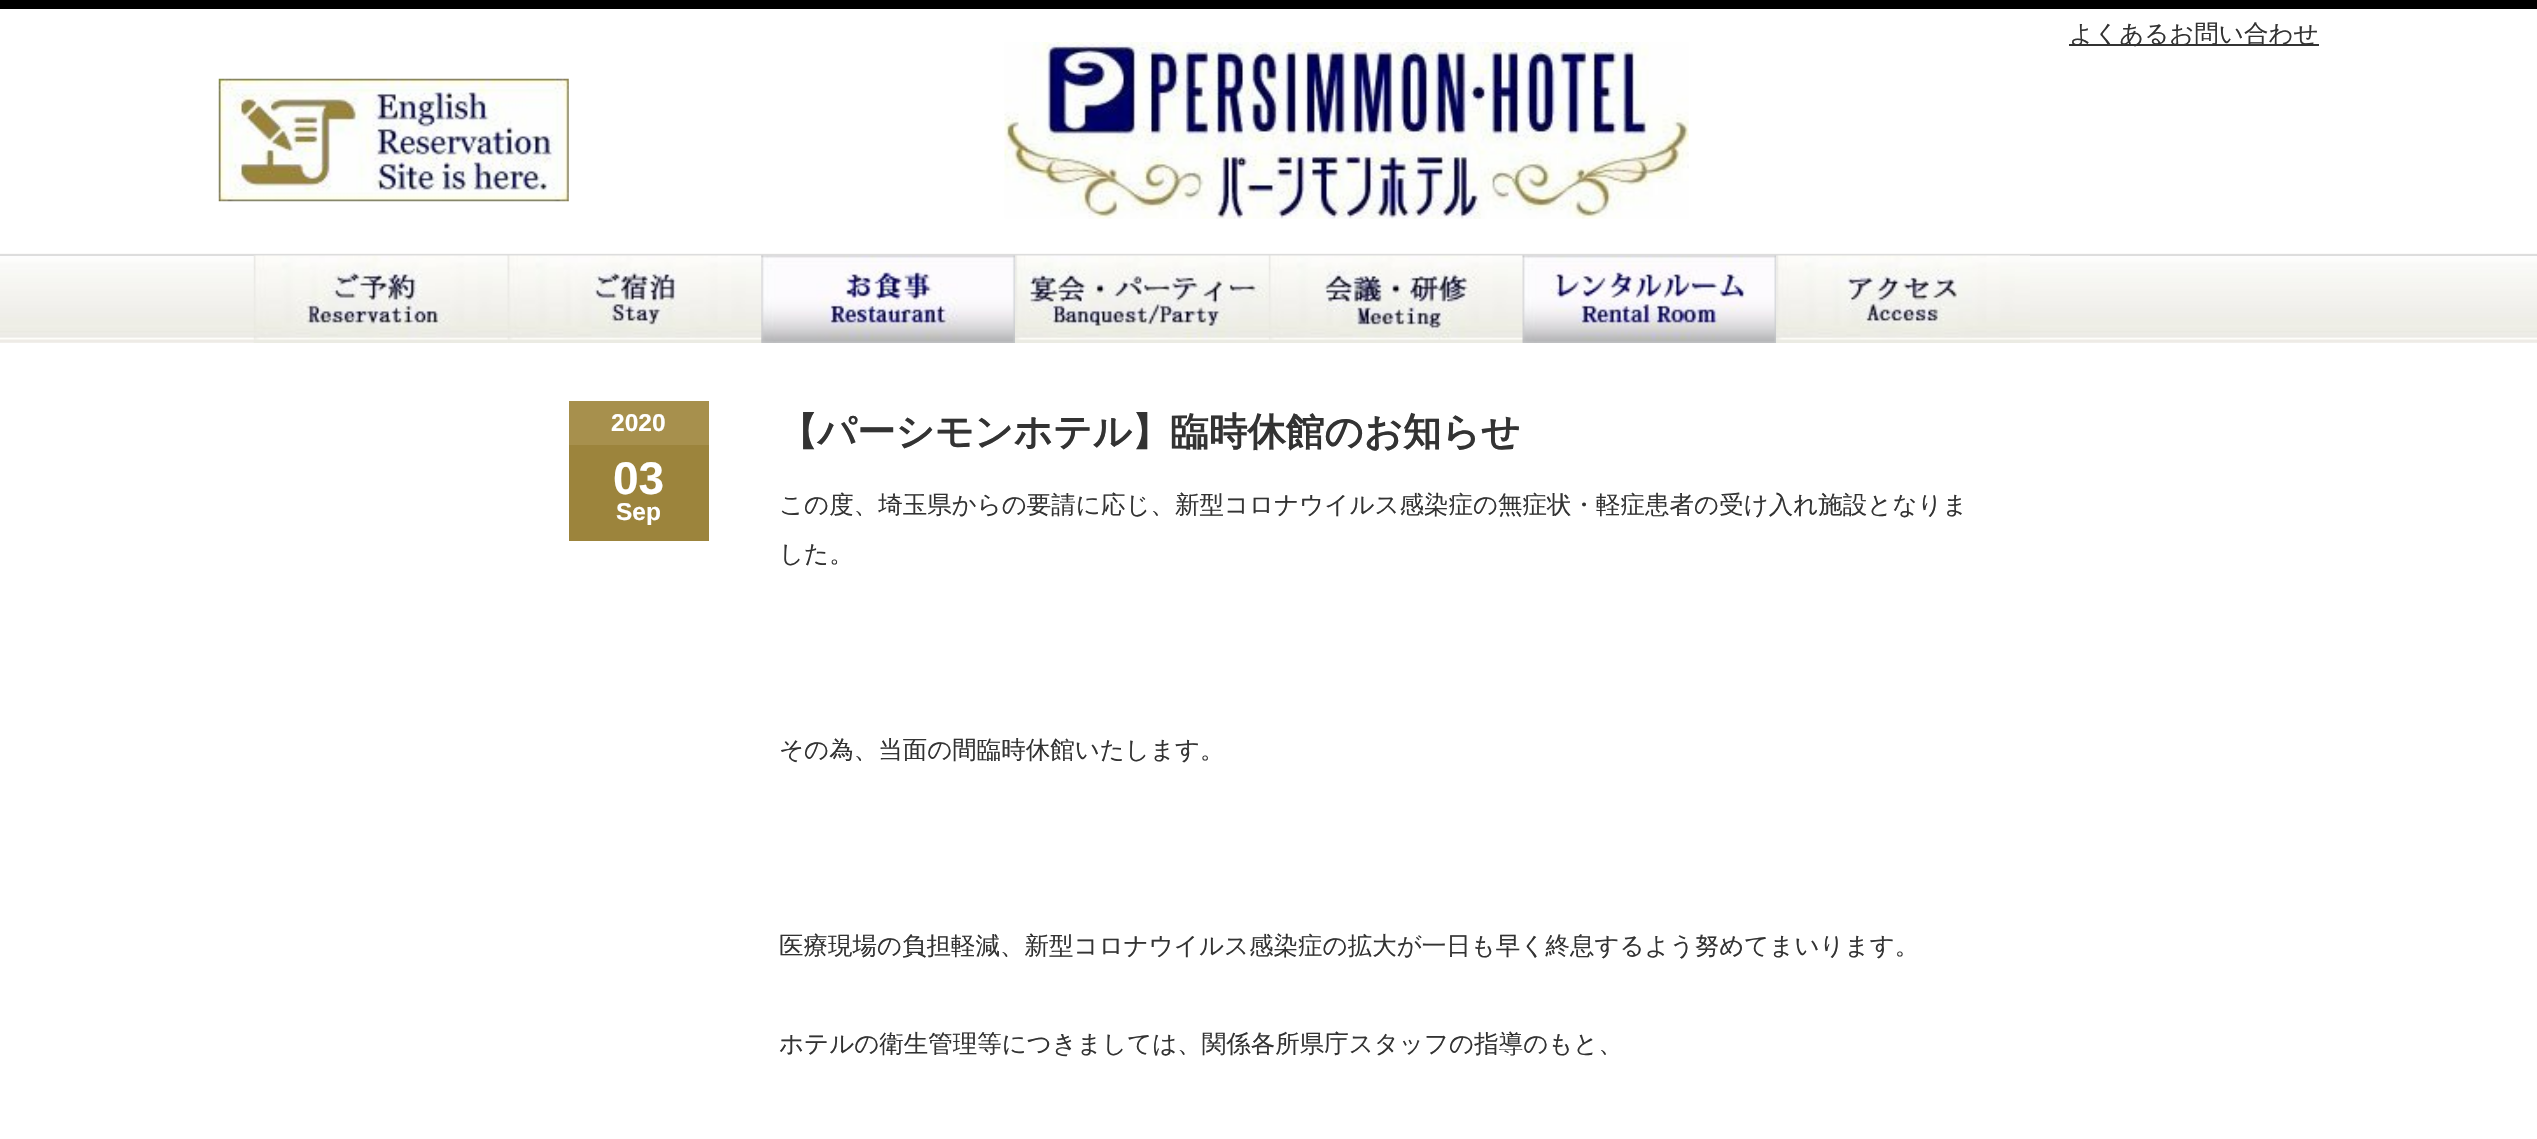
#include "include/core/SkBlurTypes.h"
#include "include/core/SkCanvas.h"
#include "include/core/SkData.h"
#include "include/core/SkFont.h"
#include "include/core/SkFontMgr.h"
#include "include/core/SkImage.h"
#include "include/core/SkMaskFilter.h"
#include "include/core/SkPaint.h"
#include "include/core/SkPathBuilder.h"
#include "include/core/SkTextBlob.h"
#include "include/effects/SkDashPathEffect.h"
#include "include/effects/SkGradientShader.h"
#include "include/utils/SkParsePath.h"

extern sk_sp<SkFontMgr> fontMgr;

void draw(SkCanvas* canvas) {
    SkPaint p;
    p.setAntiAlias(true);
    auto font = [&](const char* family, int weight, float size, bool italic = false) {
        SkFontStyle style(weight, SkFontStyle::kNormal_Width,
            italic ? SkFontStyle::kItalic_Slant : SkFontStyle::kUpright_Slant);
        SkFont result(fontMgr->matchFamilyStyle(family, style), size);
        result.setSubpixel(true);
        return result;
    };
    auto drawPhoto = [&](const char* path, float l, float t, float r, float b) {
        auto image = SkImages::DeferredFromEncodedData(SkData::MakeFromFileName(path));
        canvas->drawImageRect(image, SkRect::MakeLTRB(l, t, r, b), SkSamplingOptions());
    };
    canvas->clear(0xFFFFFFFF);
    p.setColor(0xFF000000);
    canvas->drawRect(SkRect::MakeLTRB(0, 0, 2537, 9), p);
    p.setColor(0xFF333333);
    canvas->drawRect(SkRect::MakeLTRB(2069, 44, 2319, 46), p);
    auto font1 = font("WenQuanYi Zen Hei", 500, 24.5f);
    canvas->drawString("よくあるお問い合わせ", 2069, 42, font1, p);
    drawPhoto("media/1.png", 218, 78, 569, 202);
    drawPhoto("media/2.png", 1004, 42, 1689, 219);
    drawPhoto("media/3.png", 0, 253, 2537, 343);
    p.setColor(0xFFDDDDDD);
    canvas->drawRect(SkRect::MakeLTRB(0, 254, 2537, 256), p);
    drawPhoto("media/4.png", 253, 255, 508, 343);
    drawPhoto("media/5.png", 507, 255, 762, 343);
    drawPhoto("media/6.png", 761, 255, 1015, 343);
    drawPhoto("media/7.png", 1015, 255, 1269, 343);
    drawPhoto("media/8.png", 1268, 255, 1523, 343);
    drawPhoto("media/9.png", 1522, 255, 1777, 343);
    drawPhoto("media/10.png", 1776, 255, 2030, 343);
    p.setColor(0xFF9C843C);
    canvas->drawRect(SkRect::MakeLTRB(569, 445, 709, 541), p);
    p.setColor(0xFFA7904D);
    canvas->drawRect(SkRect::MakeLTRB(569, 401, 709, 445), p);
    auto font2 = font("Liberation Sans", 700, 24.5f);
    p.setColor(0xFFFFFFFF);
    canvas->drawString("2020", 611, 431, font2, p);
    auto font3 = font("Liberation Sans", 700, 46);
    canvas->drawString("03", 613, 494, font3, p);
    canvas->drawString("Sep", 616, 520, font2, p);
    auto font4 = font("WenQuanYi Zen Hei", 700, 38.5f);
    p.setColor(0xFF333333);
    canvas->drawString("【パーシモンホテル】臨時休館のお知らせ", 779, 445, font4, p);
    {
        const struct { const char* s; float x, y; } items[] = {
            {"この度、埼玉県からの要請に応じ、新型コロナウイルス感染症の無症状・軽症患者の受け入れ施設となりま", 779, 513},
            {"した。", 779, 562},
            {"その為、当面の間臨時休館いたします。", 779, 758},
            {"医療現場の負担軽減、新型コロナウイルス感染症の拡大が一日も早く終息するよう努めてまいります。", 779, 954},
            {"ホテルの衛生管理等につきましては、関係各所県庁スタッフの指導のもと、", 779, 1052},
        };
        for (auto [s, x, y] : items) {
            canvas->drawString(s, x, y, font1, p);
        }
    }
}
